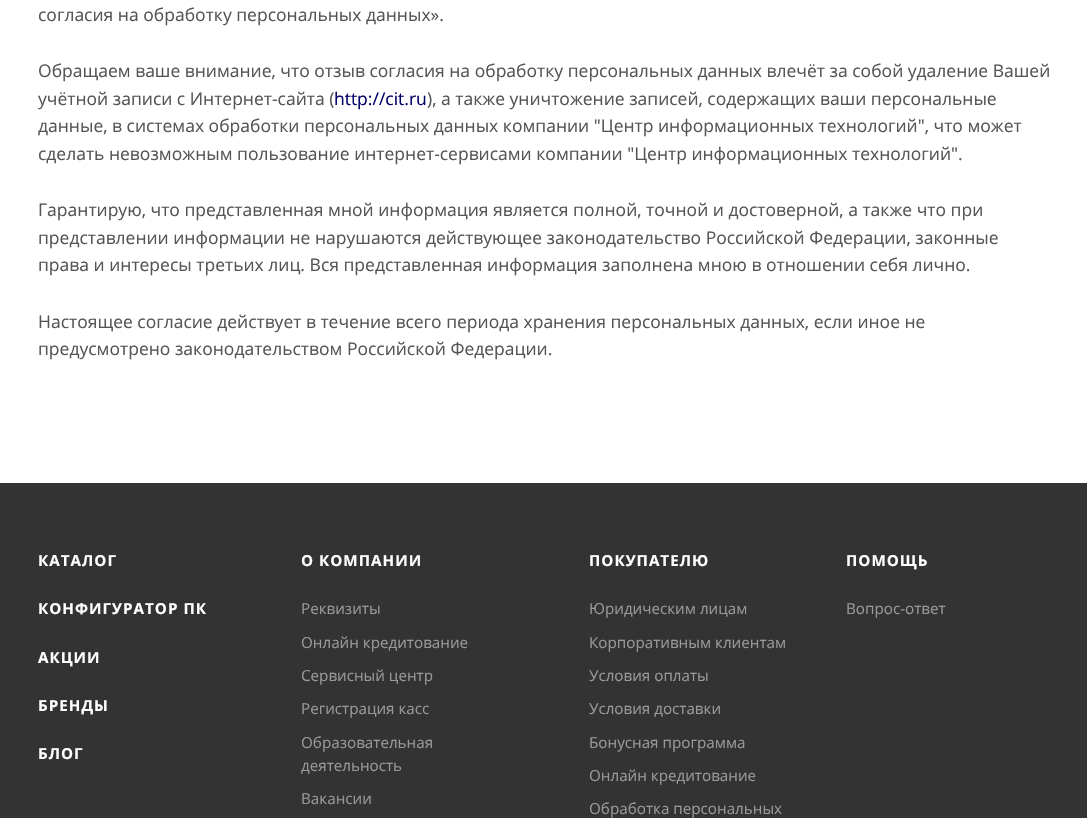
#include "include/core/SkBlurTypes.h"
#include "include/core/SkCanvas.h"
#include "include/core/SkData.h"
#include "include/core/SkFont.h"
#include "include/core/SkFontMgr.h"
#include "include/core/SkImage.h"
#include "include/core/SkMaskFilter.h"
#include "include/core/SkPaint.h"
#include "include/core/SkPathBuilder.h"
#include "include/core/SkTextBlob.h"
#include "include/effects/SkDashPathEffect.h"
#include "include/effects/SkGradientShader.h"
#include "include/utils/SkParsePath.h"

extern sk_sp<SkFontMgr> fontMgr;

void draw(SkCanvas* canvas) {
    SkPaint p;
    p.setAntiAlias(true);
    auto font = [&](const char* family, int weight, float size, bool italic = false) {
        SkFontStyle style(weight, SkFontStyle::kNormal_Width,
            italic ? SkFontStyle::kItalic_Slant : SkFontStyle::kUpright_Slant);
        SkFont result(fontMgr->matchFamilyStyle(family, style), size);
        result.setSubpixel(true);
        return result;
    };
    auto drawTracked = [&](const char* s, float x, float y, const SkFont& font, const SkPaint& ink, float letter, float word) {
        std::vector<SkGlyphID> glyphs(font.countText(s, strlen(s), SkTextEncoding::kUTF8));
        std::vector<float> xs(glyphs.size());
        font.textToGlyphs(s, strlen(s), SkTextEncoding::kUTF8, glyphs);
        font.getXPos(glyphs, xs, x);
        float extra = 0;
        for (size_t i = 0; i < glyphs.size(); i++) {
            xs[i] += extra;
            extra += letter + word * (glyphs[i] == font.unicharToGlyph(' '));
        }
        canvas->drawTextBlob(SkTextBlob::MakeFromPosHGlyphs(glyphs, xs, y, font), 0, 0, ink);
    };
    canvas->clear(0xFFFFFFFF);
    auto font1 = font("Open Sans", 400, 17.5f);
    p.setColor(0xFF555555);
    {
        const struct { const char* s; float x, y; } items[] = {
            {"согласия на обработку персональных данных».", 38, 21},
            {"Обращаем ваше внимание, что отзыв согласия на обработку персональных данных влечёт за собой удаление Вашей", 38, 77},
            {"учётной записи с Интернет-сайта (", 38, 105},
        };
        for (auto [s, x, y] : items) {
            canvas->drawString(s, x, y, font1, p);
        }
    }
    p.setColor(0xFF000066);
    canvas->drawString("http://cit.ru", 334, 105, font1, p);
    p.setColor(0xFF555555);
    {
        const struct { const char* s; float x, y; } items[] = {
            {"), а также уничтожение записей, содержащих ваши персональные", 427, 105},
            {"данные, в системах обработки персональных данных компании \"Центр информационных технологий\", что может", 38, 132},
            {"сделать невозможным пользование интернет-сервисами компании \"Центр информационных технологий\".", 38, 160},
            {"Гарантирую, что представленная мной информация является полной, точной и достоверной, а также что при", 38, 216},
            {"представлении информации не нарушаются действующее законодательство Российской Федерации, законные", 38, 244},
            {"права и интересы третьих лиц. Вся представленная информация заполнена мною в отношении себя лично.", 38, 271},
            {"Настоящее согласие действует в течение всего периода хранения персональных данных, если иное не", 38, 328},
            {"предусмотрено законодательством Российской Федерации.", 38, 355},
        };
        for (auto [s, x, y] : items) {
            canvas->drawString(s, x, y, font1, p);
        }
    }
    p.setColor(0xFF333333);
    canvas->drawRect(SkRect::MakeLTRB(0, 483, 1087, 818), p);
    auto font2 = font("Open Sans", 700, 15.2f);
    p.setColor(0xFFFFFFFF);
    {
        const struct { const char* s; float x, y; } items[] = {
            {"КАТАЛОГ", 38, 566},
            {"КОНФИГУРАТОР ПК", 38, 614},
            {"АКЦИИ", 38, 663},
            {"БРЕНДЫ", 38, 711},
            {"БЛОГ", 38, 759},
            {"О КОМПАНИИ", 301, 566},
        };
        for (auto [s, x, y] : items) {
            drawTracked(s, x, y, font2, p, 1, 0);
        }
    }
    auto font3 = font("Open Sans", 400, 15.2f);
    p.setColor(0xFF999999);
    {
        const struct { const char* s; float x, y; } items[] = {
            {"Реквизиты", 301, 614},
            {"Онлайн кредитование", 301, 648},
            {"Сервисный центр", 301, 681},
            {"Регистрация касс", 301, 714},
            {"Образовательная", 301, 748},
            {"деятельность", 301, 771},
            {"Вакансии", 301, 804},
        };
        for (auto [s, x, y] : items) {
            canvas->drawString(s, x, y, font3, p);
        }
    }
    p.setColor(0xFFFFFFFF);
    drawTracked("ПОКУПАТЕЛЮ", 589, 566, font2, p, 1, 0);
    p.setColor(0xFF999999);
    {
        const struct { const char* s; float x, y; } items[] = {
            {"Юридическим лицам", 589, 614},
            {"Корпоративным клиентам", 589, 648},
            {"Условия оплаты", 589, 681},
            {"Условия доставки", 589, 714},
            {"Бонусная программа", 589, 748},
            {"Онлайн кредитование", 589, 781},
            {"Обработка персональных", 589, 814},
        };
        for (auto [s, x, y] : items) {
            canvas->drawString(s, x, y, font3, p);
        }
    }
    p.setColor(0xFFFFFFFF);
    drawTracked("ПОМОЩЬ", 846, 566, font2, p, 1, 0);
    p.setColor(0xFF999999);
    canvas->drawString("Вопрос-ответ", 846, 614, font3, p);
}
